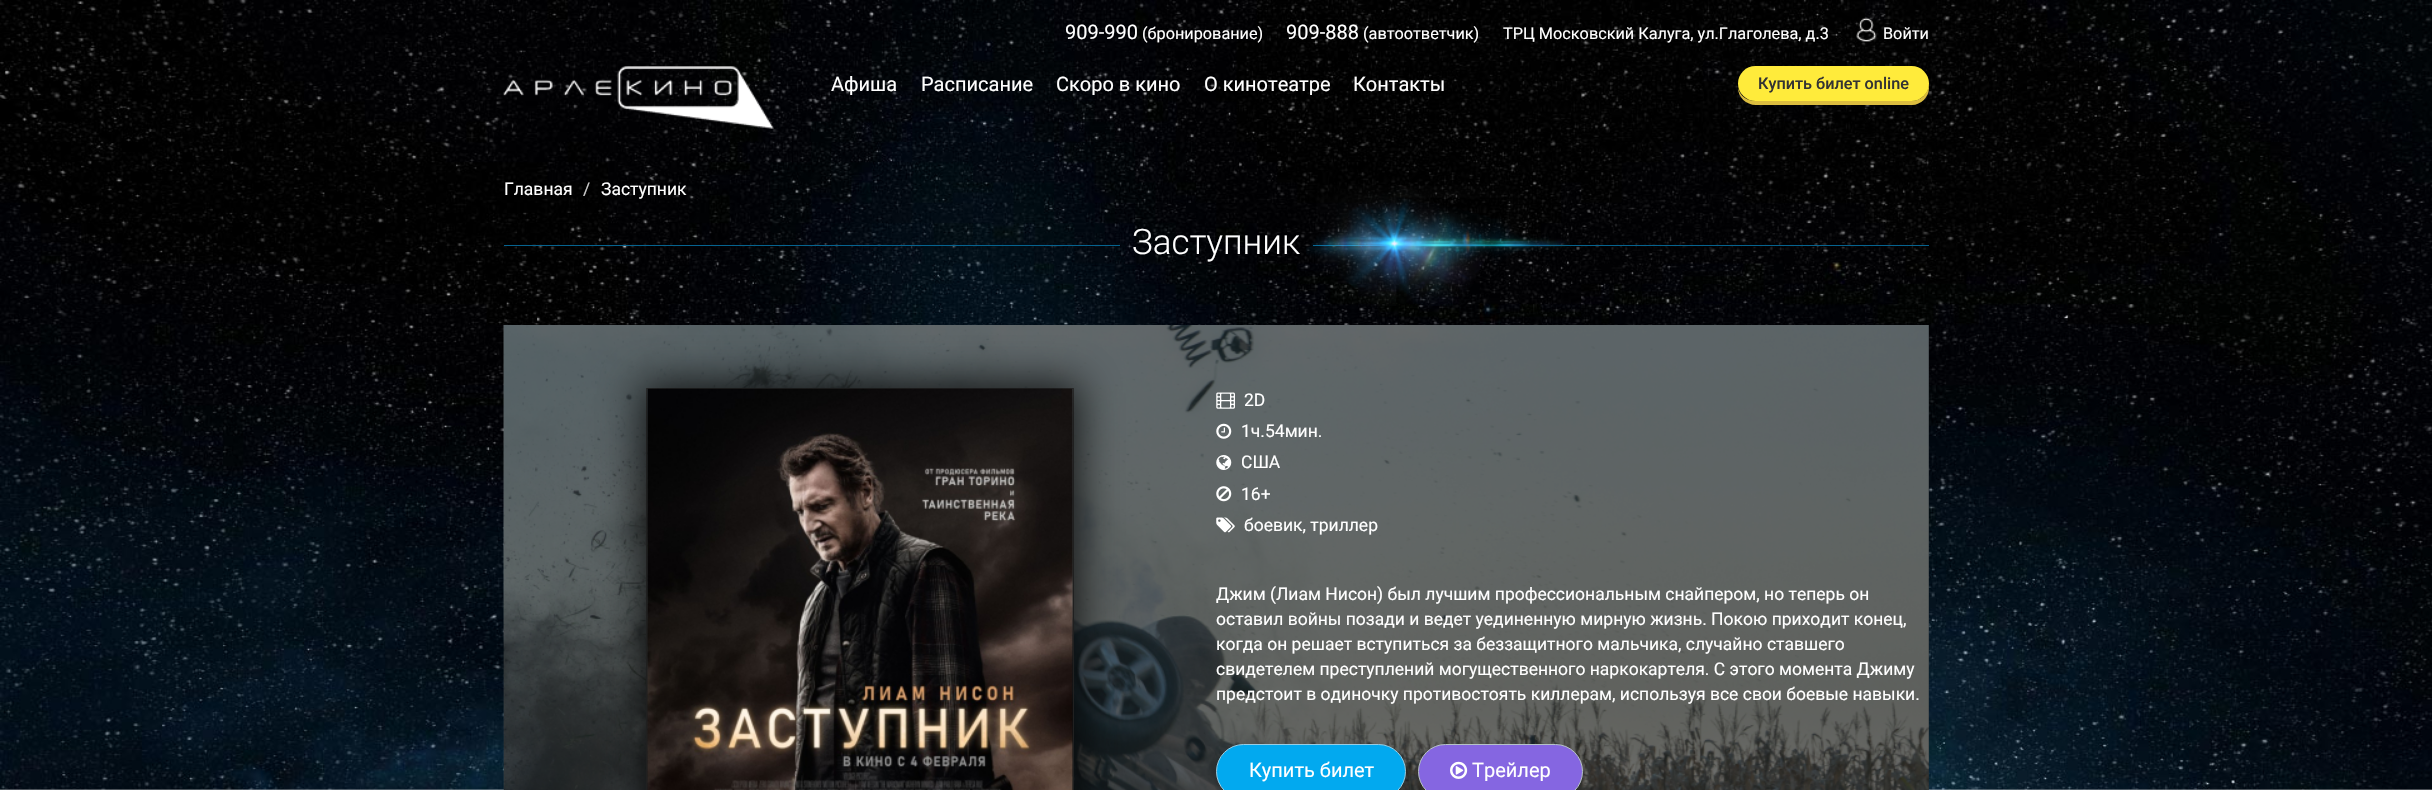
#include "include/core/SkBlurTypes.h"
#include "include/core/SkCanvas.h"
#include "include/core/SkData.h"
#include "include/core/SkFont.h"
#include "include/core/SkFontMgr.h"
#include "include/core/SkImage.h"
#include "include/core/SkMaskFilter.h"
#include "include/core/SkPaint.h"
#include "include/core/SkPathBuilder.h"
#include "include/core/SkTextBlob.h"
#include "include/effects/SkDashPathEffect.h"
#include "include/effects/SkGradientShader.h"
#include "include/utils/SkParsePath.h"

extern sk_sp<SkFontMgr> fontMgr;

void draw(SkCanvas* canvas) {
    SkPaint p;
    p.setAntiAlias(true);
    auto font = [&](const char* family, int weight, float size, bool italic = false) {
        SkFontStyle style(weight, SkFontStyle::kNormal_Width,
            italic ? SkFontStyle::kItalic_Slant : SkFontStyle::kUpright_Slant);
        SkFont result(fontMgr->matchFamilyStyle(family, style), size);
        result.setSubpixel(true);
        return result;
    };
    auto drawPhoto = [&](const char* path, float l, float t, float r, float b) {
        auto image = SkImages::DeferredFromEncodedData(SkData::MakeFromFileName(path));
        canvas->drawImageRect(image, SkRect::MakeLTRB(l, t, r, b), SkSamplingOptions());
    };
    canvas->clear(0xFFFFFFFF);
    drawPhoto("media/1.png", 0, 0, 2432, 790);
    auto font1 = font("Roboto", 400, 20);
    p.setColor(0xFFFFFFFF);
    canvas->drawString("909-990", 1065, 39, font1, p);
    auto font2 = font("Roboto", 400, 16.25f);
    canvas->drawString("(бронирование)", 1142, 39, font2, p);
    canvas->drawString("909-888", 1286, 39, font1, p);
    canvas->drawString("(автоответчик)", 1363, 39, font2, p);
    canvas->drawString("ТРЦ Московский Калуга, ул.Глаголева, д.3", 1503, 39, font2, p);
    drawPhoto("media/2.png", 1856, 17, 1877, 42);
    canvas->drawString("Войти", 1883, 39, font2, p);
    drawPhoto("media/3.png", 503, 66, 774, 129);
    {
        const struct { const char* s; float x, y; } items[] = {
            {"Афиша", 831, 91},
            {"Расписание", 921, 91},
            {"Скоро в кино", 1056, 91},
            {"О кинотеатре", 1204, 91},
            {"Контакты", 1353, 91},
        };
        for (auto [s, x, y] : items) {
            canvas->drawString(s, x, y, font1, p);
        }
    }
    p.setColor(0xFFDCBD3F);
    canvas->drawPath(SkPathBuilder().moveTo(1738, 88).cubicTo(1738, 97, 1746, 105, 1756, 105).lineTo(1912, 105).cubicTo(1921, 105, 1929, 97, 1929, 88).lineTo(1929, 84).cubicTo(1928, 94, 1921, 101, 1911, 101).lineTo(1755, 101).cubicTo(1747, 101, 1740, 96, 1738, 88).close().detach(), p);
    p.setColor(0xFFFFEB3B);
    canvas->drawRoundRect(SkRect::MakeLTRB(1738, 66, 1929, 101), 17.5f, 17.5f, p);
    auto font3 = font("Roboto", 500, 16.25f);
    p.setColor(0xFF333333);
    canvas->drawString("Купить билет online", 1758, 89, font3, p);
    auto font4 = font("Roboto", 400, 17.5f);
    p.setColor(0xFFFFFFFF);
    canvas->drawString("Главная", 504, 195, font4, p);
    p.setColor(0xFFCCCCCC);
    canvas->drawString("/", 583, 195, font4, p);
    p.setColor(0xFFFFFFFF);
    canvas->drawString("Заступник", 601, 195, font4, p);
    p.setColor(0xFF06638F);
    canvas->drawRect(SkRect::MakeLTRB(504, 245, 1120, 246), p);
    auto font5 = font("Roboto", 300, 35);
    p.setColor(0xFFFFFFFF);
    canvas->drawString("Заступник", 1132, 254, font5, p);
    p.setColor(0xFF06638F);
    canvas->drawRect(SkRect::MakeLTRB(1313, 245, 1929, 246), p);
    drawPhoto("media/4.png", 1306, 185, 1573, 306);
    drawPhoto("media/5.png", 503, 325, 1929, 790);
    p.setColor(0x9920272B);
    canvas->drawRect(SkRect::MakeLTRB(504, 325, 1929, 790), p);
    p.setStyle(SkPaint::kStroke_Style);
    p.setStrokeWidth(1);
    p.setColor(0xFF3C3C3C);
    canvas->drawRect(SkRect::MakeLTRB(646.5f, 388.5f, 1073.5f, 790.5f), p);
    p.setStyle(SkPaint::kFill_Style);
    p.setColor(0xBF000000);
    p.setMaskFilter(SkMaskFilter::MakeBlur(kNormal_SkBlurStyle, 19));
    canvas->drawRect(SkRect::MakeLTRB(640, 381, 1080, 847), p);
    p.setMaskFilter(nullptr);
    drawPhoto("media/6.png", 647, 388, 1073, 790);
    drawPhoto("media/7.png", 1216, 392, 1235, 409);
    p.setColor(0xFFFFFFFF);
    canvas->drawString("2D", 1244, 406, font4, p);
    drawPhoto("media/8.png", 1216, 423, 1232, 439);
    canvas->drawString("1ч.54мин.", 1241, 437, font4, p);
    drawPhoto("media/9.png", 1216, 455, 1232, 470);
    canvas->drawString("США", 1241, 468, font4, p);
    drawPhoto("media/10.png", 1216, 486, 1232, 502);
    canvas->drawString("16+", 1241, 500, font4, p);
    drawPhoto("media/11.png", 1216, 517, 1235, 533);
    {
        const struct { const char* s; float x, y; } items[] = {
            {"боевик, триллер", 1244, 531},
            {"Джим (Лиам Нисон) был лучшим профессиональным снайпером, но теперь он", 1216, 600},
            {"оставил войны позади и ведет уединенную мирную жизнь. Покою приходит конец,", 1216, 625},
            {"когда он решает вступиться за беззащитного мальчика, случайно ставшего", 1216, 650},
            {"свидетелем преступлений могущественного наркокартеля. С этого момента Джиму", 1216, 675},
            {"предстоит в одиночку противостоять киллерам, используя все свои боевые навыки.", 1216, 700},
        };
        for (auto [s, x, y] : items) {
            canvas->drawString(s, x, y, font4, p);
        }
    }
    p.setColor(0xFF02A9EF);
    canvas->drawRoundRect(SkRect::MakeLTRB(1216.5f, 744.5f, 1405.5f, 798.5f), 27, 27, p);
    p.setStyle(SkPaint::kStroke_Style);
    p.setColor(0xFF98CCE2);
    canvas->drawRoundRect(SkRect::MakeLTRB(1216.5f, 744.5f, 1405.5f, 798.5f), 27, 27, p);
    p.setStyle(SkPaint::kFill_Style);
    p.setColor(0xFFFFFFFF);
    canvas->drawString("Купить билет", 1249, 777, font1, p);
    p.setColor(0xFF8566E1);
    canvas->drawRoundRect(SkRect::MakeLTRB(1418.5f, 744.5f, 1582.5f, 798.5f), 27, 27, p);
    p.setStyle(SkPaint::kStroke_Style);
    p.setColor(0xFFB6C2C7);
    canvas->drawRoundRect(SkRect::MakeLTRB(1418.5f, 744.5f, 1582.5f, 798.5f), 27, 27, p);
    drawPhoto("media/12.png", 1450, 761, 1468, 779);
    p.setStyle(SkPaint::kFill_Style);
    p.setColor(0xFFFFFFFF);
    canvas->drawString("Трейлер", 1472, 777, font1, p);
}
